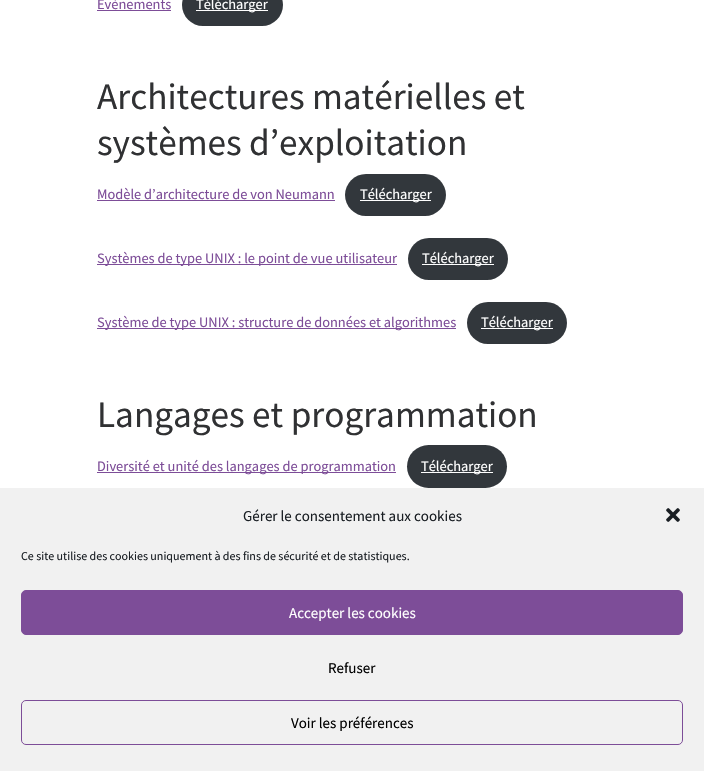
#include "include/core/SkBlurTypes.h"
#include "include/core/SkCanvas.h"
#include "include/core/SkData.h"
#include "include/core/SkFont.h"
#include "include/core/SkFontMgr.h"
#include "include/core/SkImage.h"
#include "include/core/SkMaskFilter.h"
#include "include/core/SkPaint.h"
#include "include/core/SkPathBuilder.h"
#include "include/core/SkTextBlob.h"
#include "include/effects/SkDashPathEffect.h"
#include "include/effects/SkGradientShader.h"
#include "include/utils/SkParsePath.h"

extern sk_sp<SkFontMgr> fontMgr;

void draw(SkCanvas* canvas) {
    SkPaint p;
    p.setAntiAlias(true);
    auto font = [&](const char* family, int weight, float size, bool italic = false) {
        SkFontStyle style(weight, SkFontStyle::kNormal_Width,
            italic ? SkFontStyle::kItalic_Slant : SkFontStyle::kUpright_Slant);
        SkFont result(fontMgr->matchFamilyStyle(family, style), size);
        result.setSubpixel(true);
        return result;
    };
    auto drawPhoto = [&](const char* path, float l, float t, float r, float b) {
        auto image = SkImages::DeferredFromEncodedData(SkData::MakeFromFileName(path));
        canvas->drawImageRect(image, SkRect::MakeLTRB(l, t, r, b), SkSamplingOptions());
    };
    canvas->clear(0xFFFFFFFF);
    auto font1 = font("Source Sans Pro", 400, 14.4f);
    p.setColor(0xFF7D4D98);
    canvas->drawString("Evènements", 97, 9, font1, p);
    canvas->drawRect(SkRect::MakeLTRB(97, 10, 171, 11), p);
    p.setColor(0xFF32373C);
    canvas->drawRoundRect(SkRect::MakeLTRB(182, -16, 283, 26), 21, 21, p);
    p.setColor(0xFFFFFFFF);
    canvas->drawRect(SkRect::MakeLTRB(196, 10, 268, 11), p);
    canvas->drawString("Télécharger", 196, 9, font1, p);
    auto font2 = font("Source Sans Pro", 400, 37.25f);
    p.setColor(0xFF303133);
    canvas->drawString("Architectures matérielles et", 97, 109, font2, p);
    canvas->drawString("systèmes d’exploitation", 97, 155, font2, p);
    p.setColor(0xFF7D4D98);
    canvas->drawString("Modèle d’architecture de von Neumann", 97, 199, font1, p);
    canvas->drawRect(SkRect::MakeLTRB(97, 200, 335, 201), p);
    p.setColor(0xFF32373C);
    canvas->drawRoundRect(SkRect::MakeLTRB(345, 174, 446, 216), 21, 21, p);
    p.setColor(0xFFFFFFFF);
    canvas->drawRect(SkRect::MakeLTRB(360, 200, 431, 201), p);
    canvas->drawString("Télécharger", 360, 199, font1, p);
    p.setColor(0xFF7D4D98);
    canvas->drawRect(SkRect::MakeLTRB(97, 264, 397, 265), p);
    canvas->drawString("Systèmes de type UNIX : le point de vue utilisateur", 97, 263, font1, p);
    p.setColor(0xFF32373C);
    canvas->drawRoundRect(SkRect::MakeLTRB(408, 238, 508, 280), 21, 21, p);
    p.setColor(0xFFFFFFFF);
    canvas->drawRect(SkRect::MakeLTRB(422, 264, 494, 265), p);
    canvas->drawString("Télécharger", 422, 263, font1, p);
    p.setColor(0xFF7D4D98);
    canvas->drawRect(SkRect::MakeLTRB(97, 328, 456, 329), p);
    canvas->drawString("Système de type UNIX : structure de données et algorithmes", 97, 327, font1, p);
    p.setColor(0xFF32373C);
    canvas->drawRoundRect(SkRect::MakeLTRB(467, 302, 567, 344), 21, 21, p);
    p.setColor(0xFFFFFFFF);
    canvas->drawRect(SkRect::MakeLTRB(481, 328, 553, 329), p);
    canvas->drawString("Télécharger", 481, 327, font1, p);
    p.setColor(0xFF303133);
    canvas->drawString("Langages et programmation", 97, 427, font2, p);
    p.setColor(0xFF7D4D98);
    canvas->drawRect(SkRect::MakeLTRB(97, 472, 396, 473), p);
    canvas->drawString("Diversité et unité des langages de programmation", 97, 471, font1, p);
    p.setColor(0xFF32373C);
    canvas->drawRoundRect(SkRect::MakeLTRB(407, 445, 507, 488), 21.5f, 21.5f, p);
    p.setColor(0xFFFFFFFF);
    canvas->drawRect(SkRect::MakeLTRB(421, 472, 493, 473), p);
    canvas->drawString("Télécharger", 421, 471, font1, p);
    p.setColor(0xFFF1F1F1);
    canvas->drawRect(SkRect::MakeLTRB(0, 488, 704, 771), p);
    auto font3 = font("Source Sans Pro", 400, 15);
    p.setColor(0xFF191E23);
    canvas->drawString("Gérer le consentement aux cookies", 243, 521, font3, p);
    drawPhoto("media/1.png", 666, 508, 680, 522);
    auto font4 = font("Source Sans Pro", 400, 12);
    canvas->drawString("Ce site utilise des cookies uniquement à des fins de sécurité et de statistiques.", 21, 560, font4, p);
    p.setColor(0xFF7D4D98);
    canvas->drawRoundRect(SkRect::MakeLTRB(21.5f, 590.5f, 682.5f, 634.5f), 4.5f, 4.5f, p);
    p.setStyle(SkPaint::kStroke_Style);
    p.setStrokeWidth(1);
    canvas->drawRoundRect(SkRect::MakeLTRB(21.5f, 590.5f, 682.5f, 634.5f), 4.5f, 4.5f, p);
    p.setStyle(SkPaint::kFill_Style);
    p.setColor(0xFFFFFFFF);
    canvas->drawString("Accepter les cookies", 289, 618, font3, p);
    p.setColor(0xFF000000);
    canvas->drawString("Refuser", 328, 673, font3, p);
    p.setStyle(SkPaint::kStroke_Style);
    p.setColor(0xFF7D4D98);
    canvas->drawRoundRect(SkRect::MakeLTRB(21.5f, 700.5f, 682.5f, 744.5f), 4.5f, 4.5f, p);
    p.setStyle(SkPaint::kFill_Style);
    p.setColor(0xFF000000);
    canvas->drawString("Voir les préférences", 291, 728, font3, p);
}
